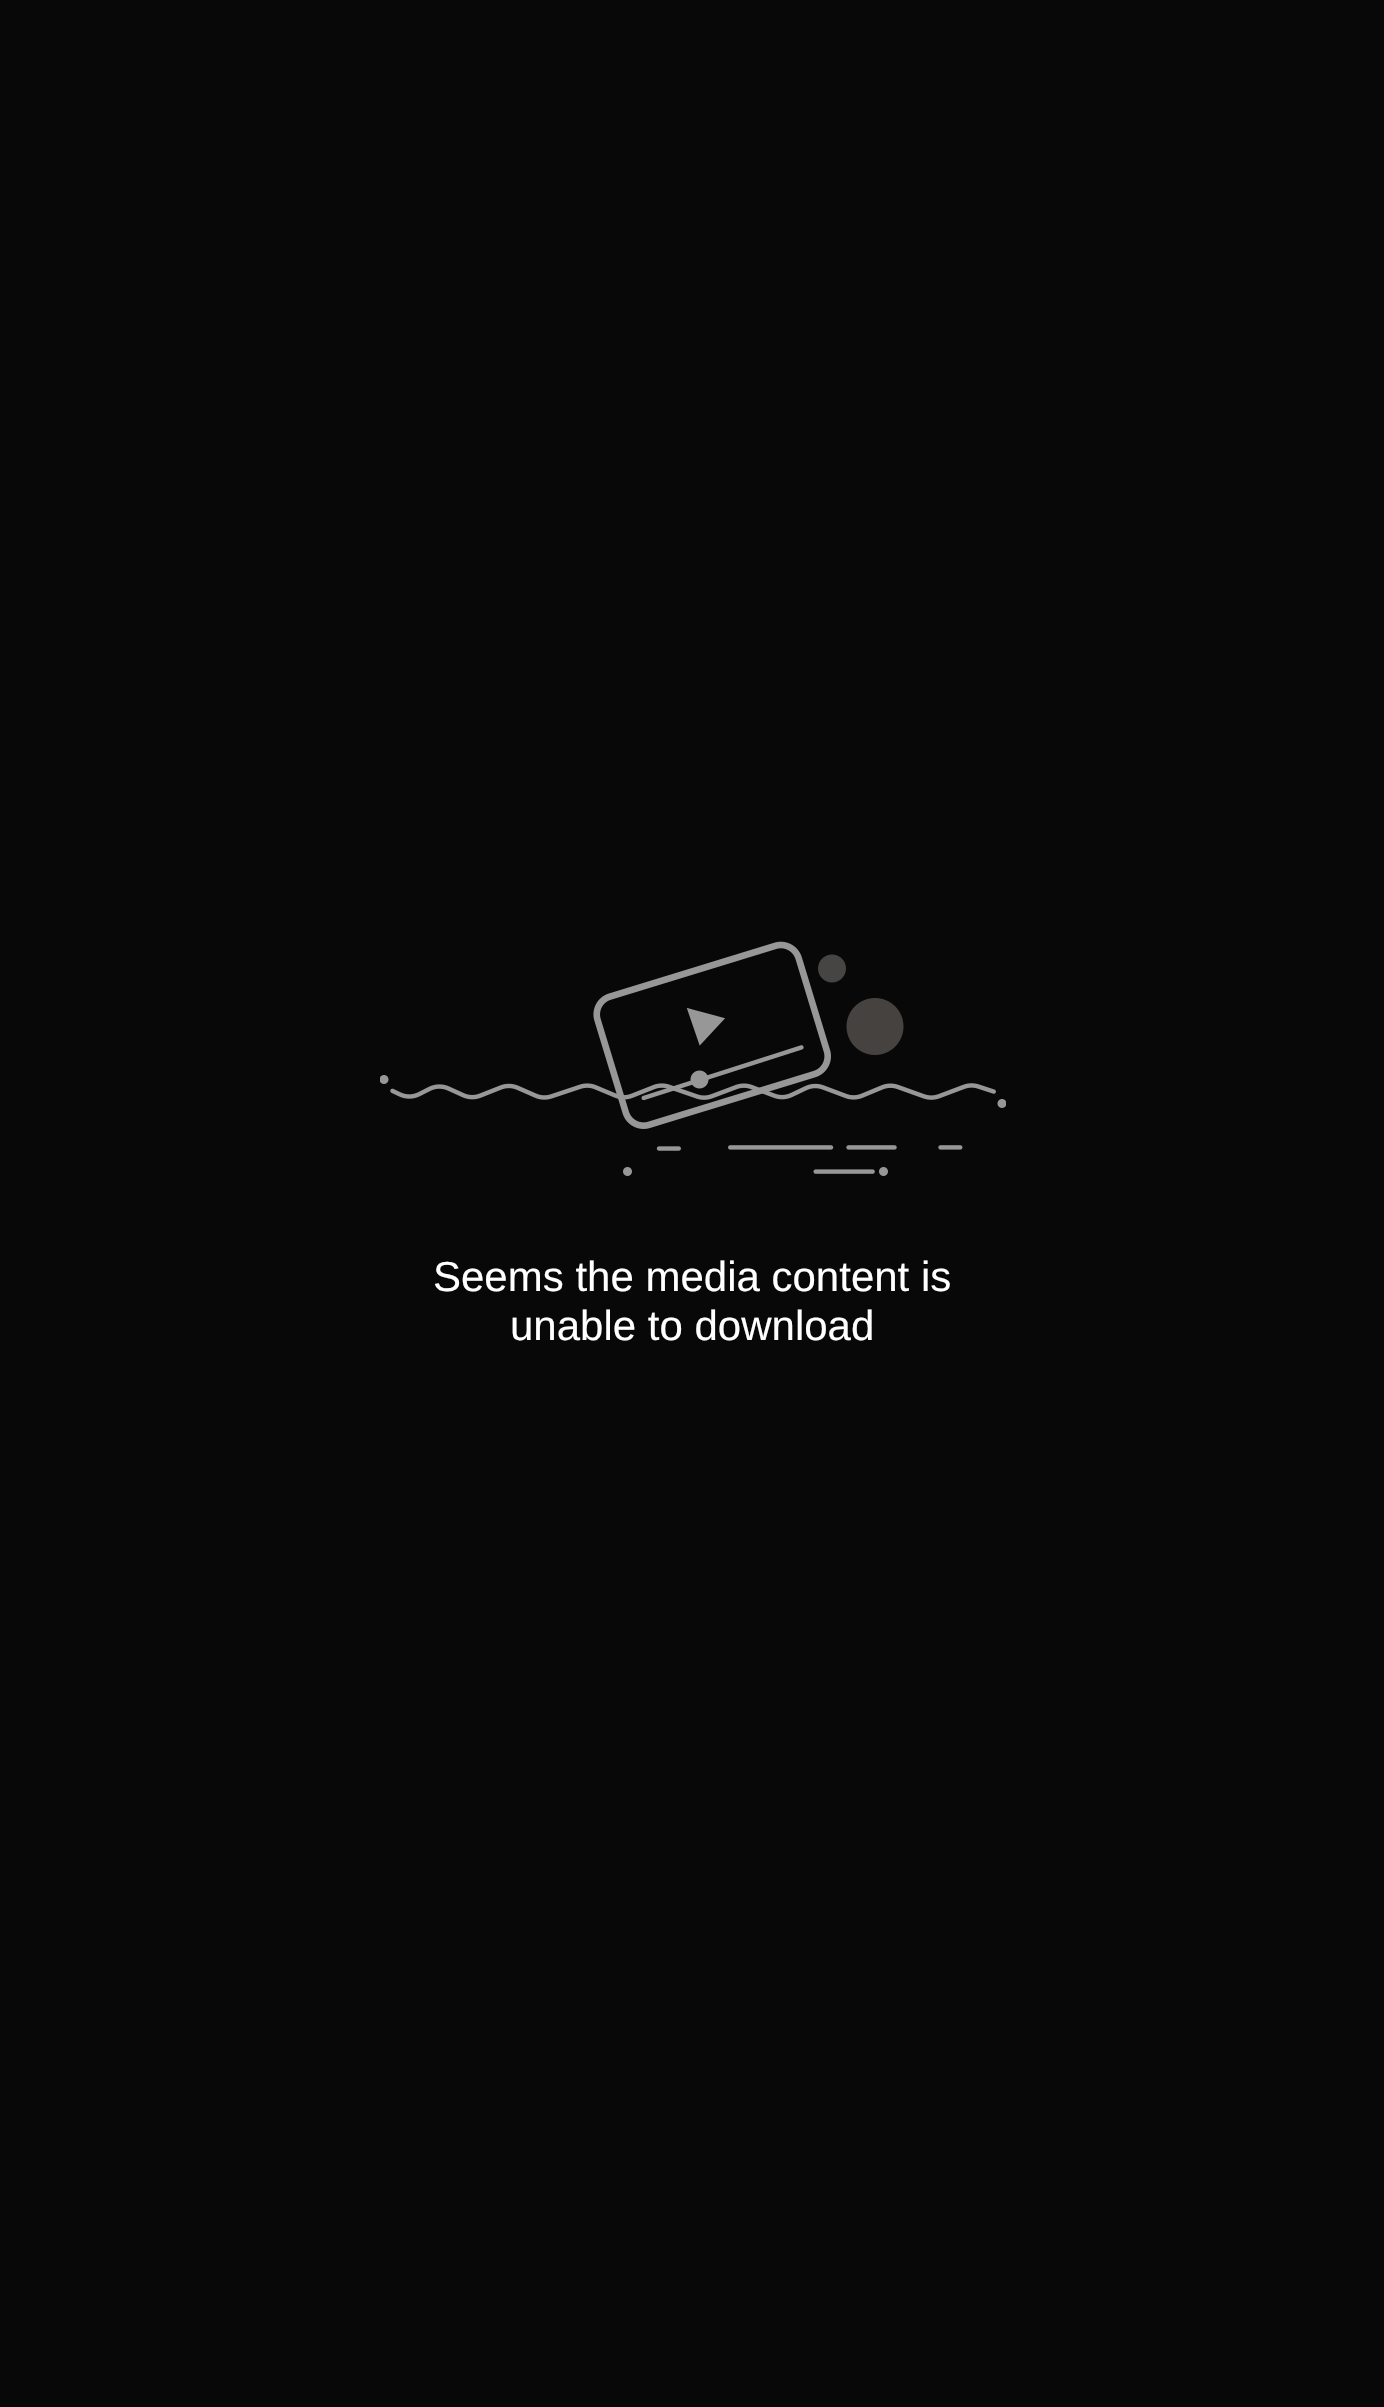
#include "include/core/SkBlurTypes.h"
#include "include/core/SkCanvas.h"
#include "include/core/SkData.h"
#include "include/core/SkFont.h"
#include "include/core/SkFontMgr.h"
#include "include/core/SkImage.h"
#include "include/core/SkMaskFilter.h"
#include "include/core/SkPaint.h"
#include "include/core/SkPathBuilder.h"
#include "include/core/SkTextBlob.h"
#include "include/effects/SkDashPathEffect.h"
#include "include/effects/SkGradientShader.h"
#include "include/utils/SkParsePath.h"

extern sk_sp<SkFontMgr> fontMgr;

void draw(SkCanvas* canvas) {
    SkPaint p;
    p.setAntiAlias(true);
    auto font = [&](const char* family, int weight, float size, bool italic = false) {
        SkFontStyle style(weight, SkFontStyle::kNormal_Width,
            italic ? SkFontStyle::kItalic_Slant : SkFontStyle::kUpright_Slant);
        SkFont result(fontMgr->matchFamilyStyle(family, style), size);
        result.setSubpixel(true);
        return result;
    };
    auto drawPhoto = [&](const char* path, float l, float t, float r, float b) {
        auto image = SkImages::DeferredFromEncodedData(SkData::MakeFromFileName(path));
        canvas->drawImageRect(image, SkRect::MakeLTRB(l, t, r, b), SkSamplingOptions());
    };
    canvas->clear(0xFF080808);
    drawPhoto("media/1.png", 380, 941, 1006, 1176);
    auto font1 = font("Liberation Sans", 400, 42);
    p.setColor(0xFFFFFFFF);
    canvas->drawString("Seems the media content is", 433, 1291, font1, p);
    canvas->drawString("unable to download", 510, 1340, font1, p);
}
